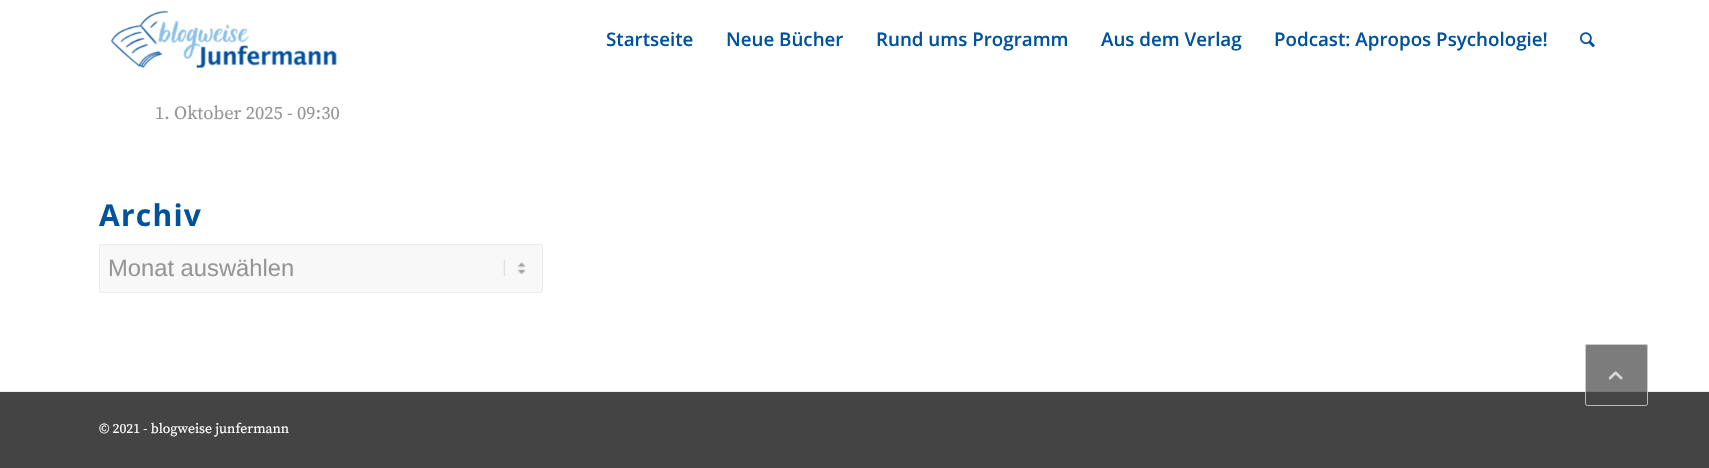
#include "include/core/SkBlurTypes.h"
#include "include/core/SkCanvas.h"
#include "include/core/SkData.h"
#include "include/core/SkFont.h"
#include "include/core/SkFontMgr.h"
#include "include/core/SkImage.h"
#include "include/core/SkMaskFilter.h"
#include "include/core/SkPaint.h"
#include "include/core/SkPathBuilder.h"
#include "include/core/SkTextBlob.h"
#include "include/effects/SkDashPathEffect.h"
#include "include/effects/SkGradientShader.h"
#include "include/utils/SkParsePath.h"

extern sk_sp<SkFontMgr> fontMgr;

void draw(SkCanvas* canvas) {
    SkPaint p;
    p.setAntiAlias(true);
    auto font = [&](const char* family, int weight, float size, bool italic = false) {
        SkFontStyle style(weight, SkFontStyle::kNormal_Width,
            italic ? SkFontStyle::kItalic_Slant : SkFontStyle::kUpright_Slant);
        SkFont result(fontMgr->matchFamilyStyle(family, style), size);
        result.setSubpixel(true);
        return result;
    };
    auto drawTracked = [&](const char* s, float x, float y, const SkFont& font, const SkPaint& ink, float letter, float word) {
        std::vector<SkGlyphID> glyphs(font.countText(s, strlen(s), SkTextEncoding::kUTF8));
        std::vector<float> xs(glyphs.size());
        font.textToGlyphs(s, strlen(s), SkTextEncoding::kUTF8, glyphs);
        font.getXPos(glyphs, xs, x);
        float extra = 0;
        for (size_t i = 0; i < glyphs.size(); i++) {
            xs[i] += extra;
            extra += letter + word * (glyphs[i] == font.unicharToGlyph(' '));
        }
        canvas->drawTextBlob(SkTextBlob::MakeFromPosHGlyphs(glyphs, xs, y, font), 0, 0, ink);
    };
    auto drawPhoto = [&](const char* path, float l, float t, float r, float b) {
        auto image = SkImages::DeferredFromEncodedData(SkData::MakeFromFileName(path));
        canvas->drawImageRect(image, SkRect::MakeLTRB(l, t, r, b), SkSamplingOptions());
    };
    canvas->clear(0xFFFFFFFF);
    drawPhoto("media/1.png", 110, 10, 337, 68);
    auto font1 = font("Open Sans", 600, 18.75f);
    p.setColor(0xFF00529E);
    {
        const struct { const char* s; float x, y; } items[] = {
            {"Startseite", 606, 46},
            {"Neue Bücher", 726, 46},
            {"Rund ums Programm", 876, 46},
            {"Aus dem Verlag", 1101, 46},
            {"Podcast: Apropos Psychologie!", 1274, 46},
        };
        for (auto [s, x, y] : items) {
            canvas->drawString(s, x, y, font1, p);
        }
    }
    drawPhoto("media/2.png", 1580, 32, 1595, 47);
    auto font2 = font("Source Serif Pro", 400, 18.5f);
    p.setColor(0xFF969696);
    canvas->drawString("1. Oktober 2025 - 09:30", 155, 119, font2, p);
    auto font3 = font("Open Sans", 700, 30);
    p.setColor(0xFF00529E);
    drawTracked("Archiv", 99, 226, font3, p, 1.25f, 0);
    p.setColor(0xFFF8F8F8);
    canvas->drawRoundRect(SkRect::MakeLTRB(99, 244, 543, 293), 2.5f, 2.5f, p);
    drawPhoto("media/3.png", 503, 259, 526, 276);
    p.setStyle(SkPaint::kStroke_Style);
    p.setStrokeWidth(1);
    p.setColor(0xFFEBEBEB);
    canvas->drawRoundRect(SkRect::MakeLTRB(99.5f, 244.5f, 542.5f, 292.5f), 2, 2, p);
    auto font4 = font("Liberation Sans", 400, 23.75f);
    p.setStyle(SkPaint::kFill_Style);
    p.setColor(0xFF969696);
    canvas->drawString("Monat auswählen", 108, 276, font4, p);
    p.setColor(0xFF444444);
    canvas->drawRect(SkRect::MakeLTRB(0, 392, 1709, 468), p);
    p.setColor(0xFFEBEBEB);
    canvas->drawRect(SkRect::MakeLTRB(0, 391, 1709, 392), p);
    auto font5 = font("Source Serif Pro", 400, 13.75f);
    p.setColor(0xFFFFFFFF);
    canvas->drawString("© 2021 - blogweise junfermann", 99, 433, font5, p);
    p.setColor(0xB3444444);
    canvas->drawRoundRect(SkRect::MakeLTRB(1585, 344, 1648, 406), 2.5f, 2.5f, p);
    p.setStyle(SkPaint::kStroke_Style);
    p.setColor(0xB3EBEBEB);
    canvas->drawRoundRect(SkRect::MakeLTRB(1585.5f, 344.5f, 1647.5f, 405.5f), 2, 2, p);
    drawPhoto("media/4.png", 1608, 371, 1623, 380);
}
